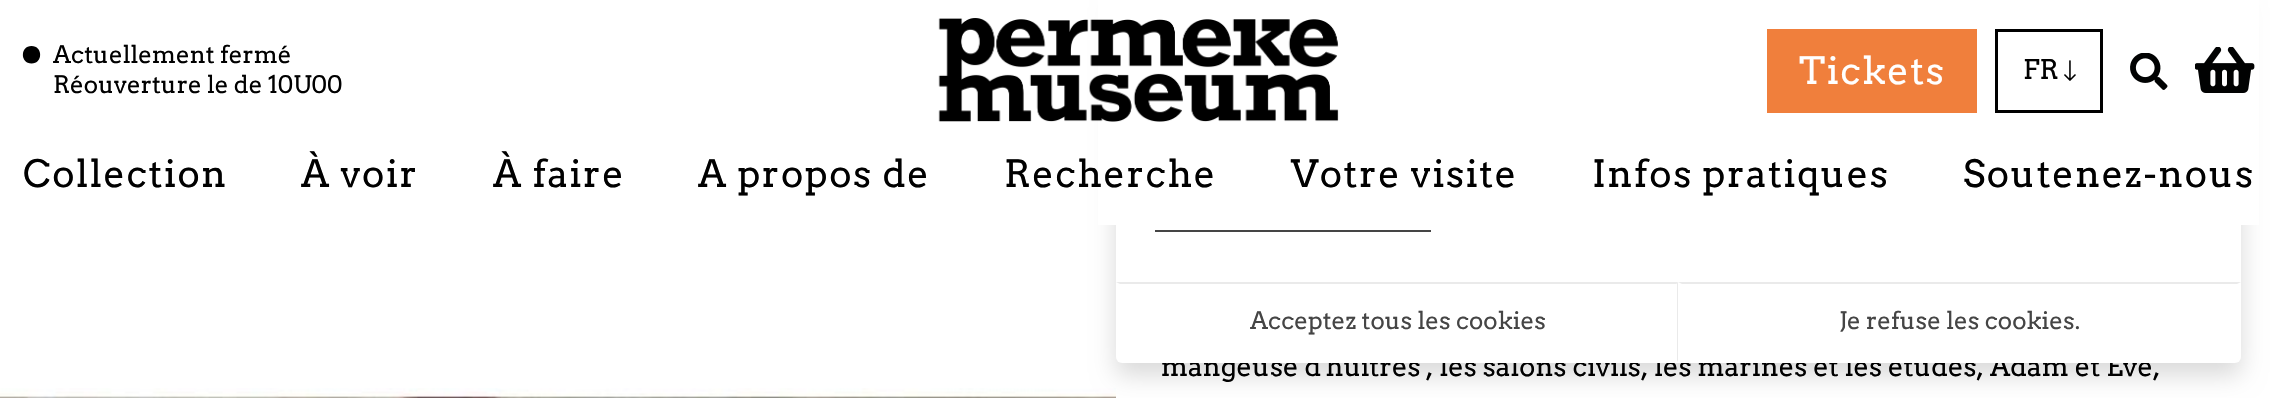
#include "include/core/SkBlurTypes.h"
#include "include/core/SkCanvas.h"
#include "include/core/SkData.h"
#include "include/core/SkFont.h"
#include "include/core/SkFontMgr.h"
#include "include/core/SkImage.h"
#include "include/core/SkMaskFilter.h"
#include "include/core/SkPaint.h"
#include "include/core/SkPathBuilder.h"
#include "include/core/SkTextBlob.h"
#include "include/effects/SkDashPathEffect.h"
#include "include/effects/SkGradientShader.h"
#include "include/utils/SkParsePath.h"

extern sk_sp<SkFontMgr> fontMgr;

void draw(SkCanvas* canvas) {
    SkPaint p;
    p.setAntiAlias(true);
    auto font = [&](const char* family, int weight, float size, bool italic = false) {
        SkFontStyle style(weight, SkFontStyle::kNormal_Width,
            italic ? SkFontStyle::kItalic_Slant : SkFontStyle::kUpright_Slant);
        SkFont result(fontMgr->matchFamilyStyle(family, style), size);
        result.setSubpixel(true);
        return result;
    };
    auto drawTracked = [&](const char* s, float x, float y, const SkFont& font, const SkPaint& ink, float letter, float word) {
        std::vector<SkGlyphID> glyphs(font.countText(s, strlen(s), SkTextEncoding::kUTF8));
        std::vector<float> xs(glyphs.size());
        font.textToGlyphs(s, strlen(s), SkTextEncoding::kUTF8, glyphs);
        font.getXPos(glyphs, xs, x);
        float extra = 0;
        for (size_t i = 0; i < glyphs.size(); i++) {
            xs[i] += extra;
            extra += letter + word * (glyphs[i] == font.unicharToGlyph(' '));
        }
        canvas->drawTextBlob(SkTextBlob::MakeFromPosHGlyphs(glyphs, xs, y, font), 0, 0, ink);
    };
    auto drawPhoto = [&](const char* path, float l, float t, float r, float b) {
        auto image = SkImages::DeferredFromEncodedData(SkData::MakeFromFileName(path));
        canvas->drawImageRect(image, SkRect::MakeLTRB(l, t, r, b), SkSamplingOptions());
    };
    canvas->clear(0xFFFFFFFF);
    drawPhoto("media/5.png", 0, 388, 1116, 398);
    p.setColor(0x26000000);
    p.setMaskFilter(SkMaskFilter::MakeBlur(kNormal_SkBlurStyle, 12));
    canvas->drawRoundRect(SkRect::MakeLTRB(1116, 5, 2241, 375), 6, 6, p);
    p.setMaskFilter(nullptr);
    auto font1 = font("Arvo", 400, 27);
    p.setColor(0xFF000000);
    canvas->drawString("mangeuse d'huîtres", 1161, 376, font1, p);
    canvas->drawString(", les salons civils, les marines et les études, Adam et Eve,", 1426, 376, font1, p);
    p.setColor(0xFFFFFFFF);
    canvas->drawRoundRect(SkRect::MakeLTRB(1116, -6, 2241, 363), 6, 6, p);
    canvas->drawRect(SkRect::MakeLTRB(1098, 0, 2259, 225), p);
    p.setColor(0xFF000000);
    canvas->drawPath(SkPathBuilder().moveTo(31.5f, 46).cubicTo(20, 46, 20, 63.5f, 31.5f, 63.5f).cubicTo(43, 63.5f, 43, 46, 31.5f, 46).close().detach(), p);
    auto font2 = font("Arvo", 400, 24);
    canvas->drawString("Actuellement fermé", 53, 63, font2, p);
    canvas->drawString("Réouverture le de 10U00", 53, 93, font2, p);
    drawPhoto("media/1.png", 938, 18, 1339, 122);
    p.setColor(0xFFF07F3C);
    canvas->drawRect(SkRect::MakeLTRB(1767, 29, 1977, 113), p);
    auto font3 = font("Arvo", 400, 37.5f);
    p.setColor(0xFFFFFFFF);
    drawTracked("Tickets", 1799, 84, font3, p, 1.5f, 0);
    p.setStyle(SkPaint::kStroke_Style);
    p.setStrokeWidth(3);
    p.setColor(0xFF000000);
    canvas->drawRect(SkRect::MakeLTRB(1996.5f, 30.5f, 2101.5f, 111.5f), p);
    p.setStyle(SkPaint::kFill_Style);
    canvas->drawString("FR", 2023, 79, font1, p);
    drawPhoto("media/2.png", 2064, 60, 2076, 81);
    drawPhoto("media/3.png", 2130, 53, 2168, 90);
    drawPhoto("media/4.png", 2195, 47, 2255, 93);
    {
        const struct { const char* s; float x, y; } items[] = {
            {"Collection", 23, 187},
            {"À voir", 301, 187},
            {"À faire", 493, 187},
            {"A propos de", 698, 187},
            {"Recherche", 1004, 187},
            {"Votre visite", 1291, 187},
            {"Infos pratiques", 1592, 187},
            {"Soutenez-nous", 1963, 187},
        };
        for (auto [s, x, y] : items) {
            drawTracked(s, x, y, font3, p, 1.5f, 0);
        }
    }
    p.setColor(0xFF454545);
    canvas->drawRect(SkRect::MakeLTRB(1155, 230, 1431, 232), p);
    p.setColor(0xFFEAEAEA);
    canvas->drawPath(SkPathBuilder().moveTo(1116, 282).lineTo(1120, 284).lineTo(1676, 284).lineTo(1678, 282).close().detach(), p);
    canvas->drawPath(SkPathBuilder().moveTo(1678, 282).lineTo(1678, 362).lineTo(1677, 360).lineTo(1677, 284).lineTo(1676, 284).close().detach(), p);
    p.setColor(0xFF454545);
    canvas->drawString("Acceptez tous les cookies", 1250, 329, font2, p);
    p.setColor(0xFFEAEAEA);
    canvas->drawPath(SkPathBuilder().moveTo(1678, 282).lineTo(1682, 284).lineTo(2237, 284).lineTo(2241, 282).close().detach(), p);
    p.setColor(0xFF454545);
    canvas->drawString("Je refuse les cookies.", 1839, 329, font2, p);
}
